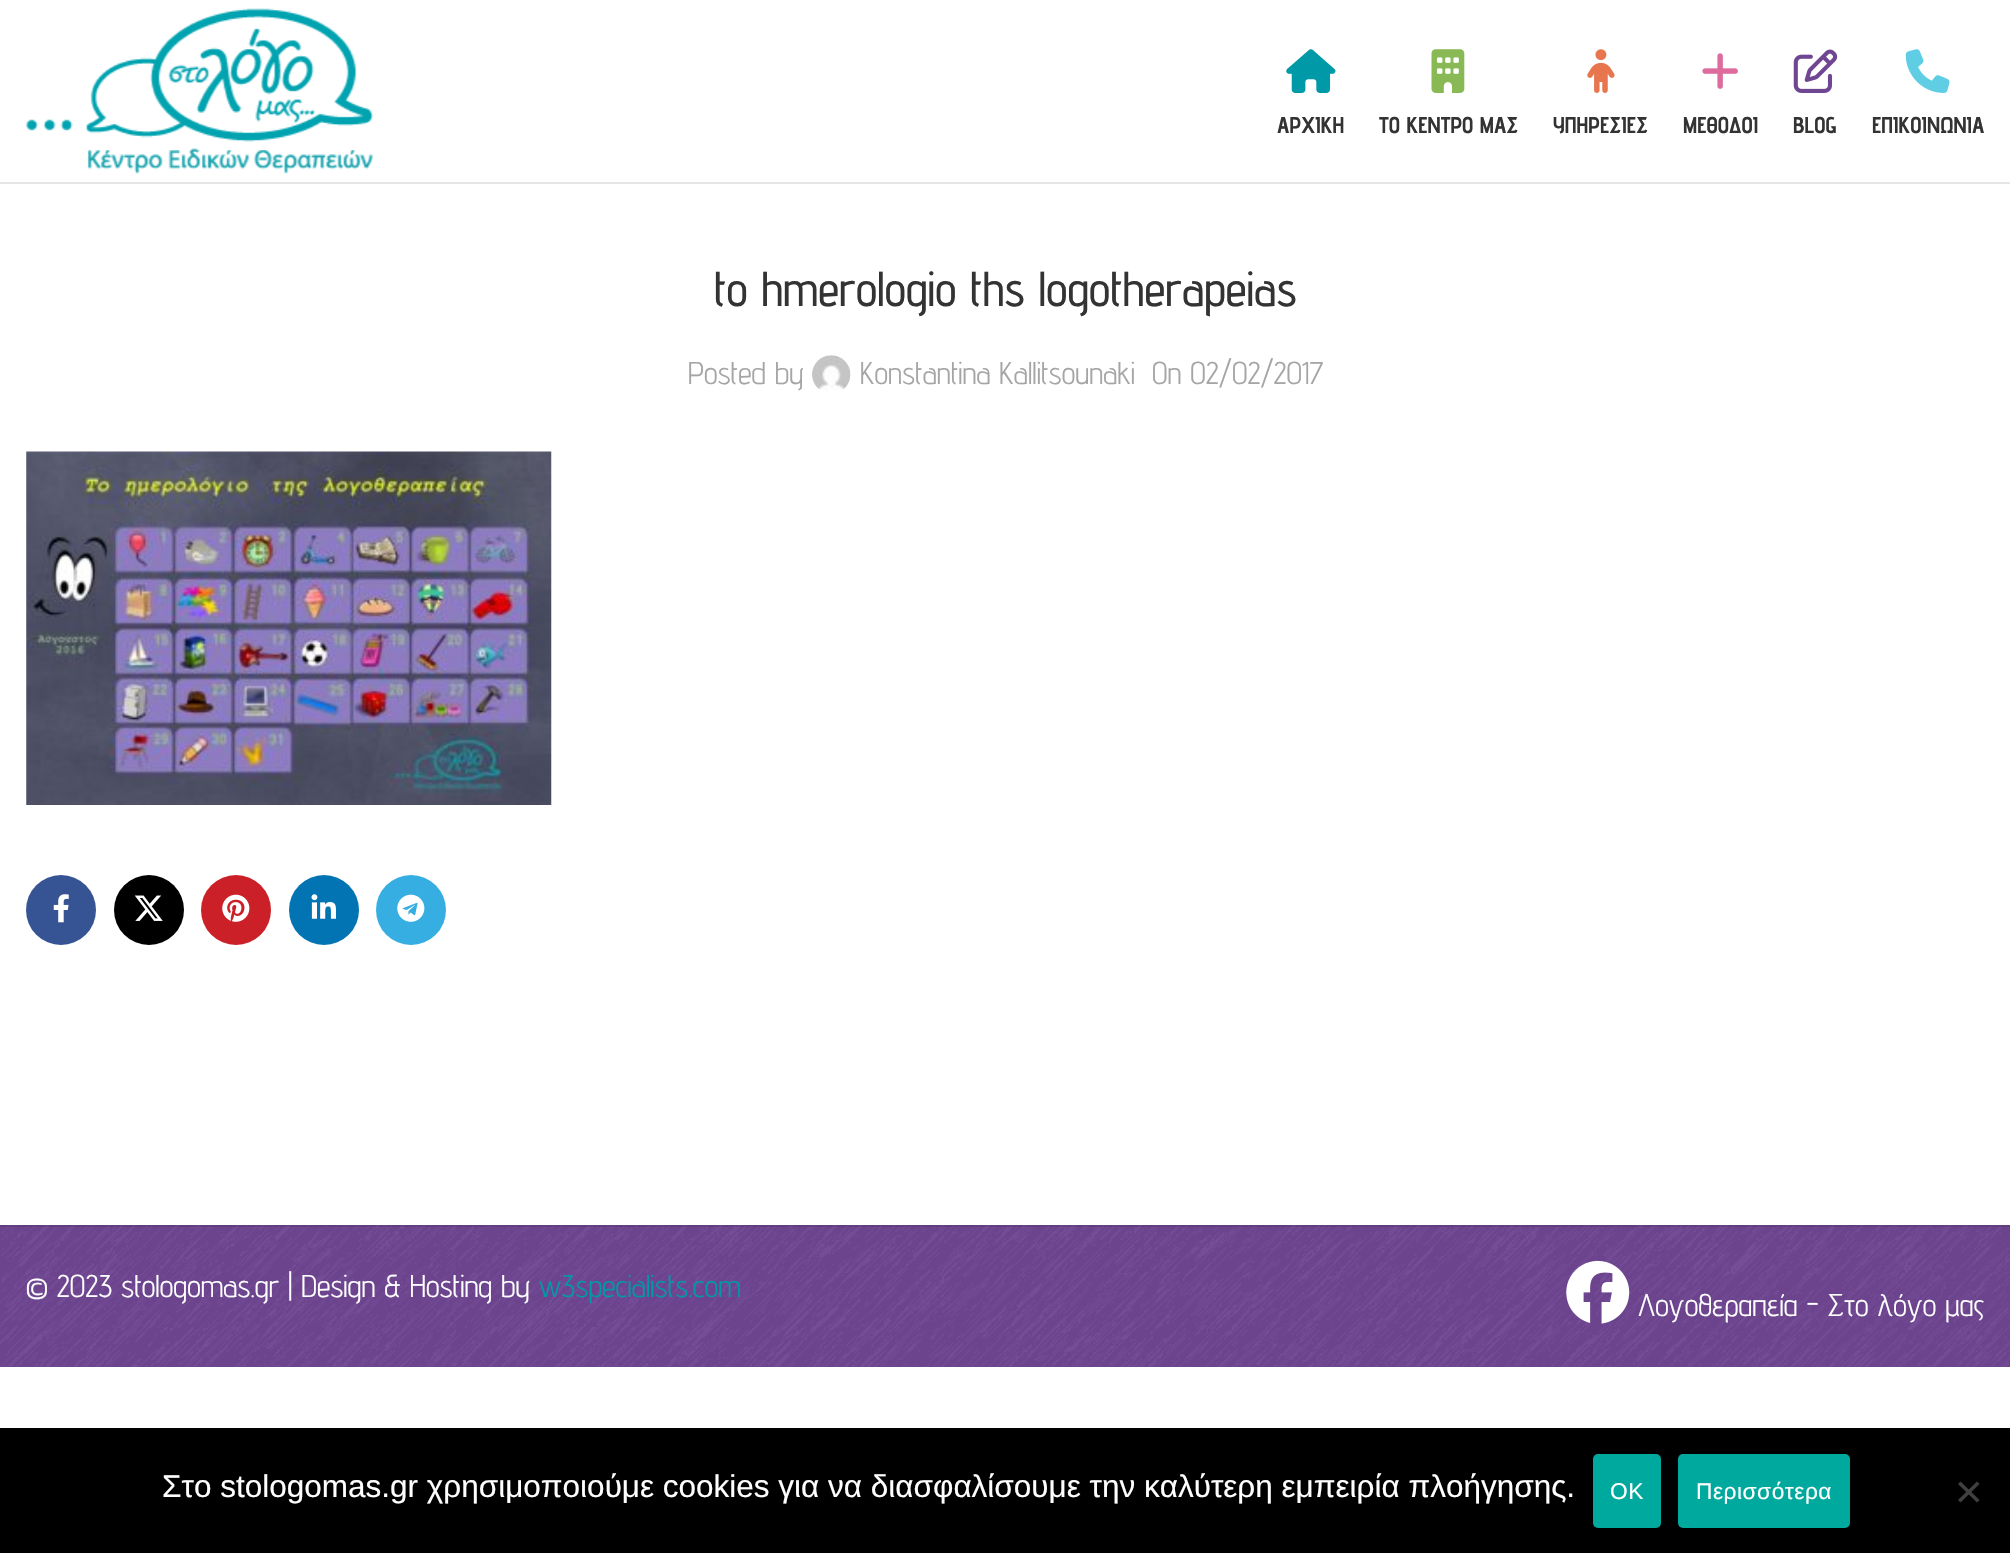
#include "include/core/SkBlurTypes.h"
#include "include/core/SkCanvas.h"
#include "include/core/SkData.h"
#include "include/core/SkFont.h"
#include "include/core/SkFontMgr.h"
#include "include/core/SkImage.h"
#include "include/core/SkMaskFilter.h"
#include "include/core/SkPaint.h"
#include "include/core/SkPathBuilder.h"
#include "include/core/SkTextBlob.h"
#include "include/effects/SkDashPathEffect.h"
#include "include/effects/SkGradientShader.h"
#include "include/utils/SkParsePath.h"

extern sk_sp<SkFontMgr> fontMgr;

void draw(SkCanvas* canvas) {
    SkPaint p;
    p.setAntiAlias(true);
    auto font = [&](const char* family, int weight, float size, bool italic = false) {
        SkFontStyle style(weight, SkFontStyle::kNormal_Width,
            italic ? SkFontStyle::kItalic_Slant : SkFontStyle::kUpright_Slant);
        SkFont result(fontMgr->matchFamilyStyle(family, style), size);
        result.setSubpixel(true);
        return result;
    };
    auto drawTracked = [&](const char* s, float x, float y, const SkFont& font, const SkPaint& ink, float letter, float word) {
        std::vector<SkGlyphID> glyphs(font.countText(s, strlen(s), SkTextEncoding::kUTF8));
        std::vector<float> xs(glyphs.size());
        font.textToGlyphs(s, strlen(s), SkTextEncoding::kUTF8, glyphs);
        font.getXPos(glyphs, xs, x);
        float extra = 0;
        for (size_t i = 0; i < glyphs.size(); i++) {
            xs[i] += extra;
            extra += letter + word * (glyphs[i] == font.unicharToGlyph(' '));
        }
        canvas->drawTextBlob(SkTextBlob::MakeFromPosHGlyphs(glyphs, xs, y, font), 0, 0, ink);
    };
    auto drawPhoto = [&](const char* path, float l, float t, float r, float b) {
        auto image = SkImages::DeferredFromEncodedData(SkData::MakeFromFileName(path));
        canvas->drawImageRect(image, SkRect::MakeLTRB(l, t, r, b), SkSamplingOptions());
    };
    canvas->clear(0xFFFFFFFF);
    p.setColor(0xFFE6E6E6);
    canvas->drawRect(SkRect::MakeLTRB(0, 182, 2010, 184), p);
    drawPhoto("media/1.png", 26, 8, 374, 174);
    drawPhoto("media/2.png", 1286, 49, 1336, 93);
    auto font1 = font("Advent Pro", 700, 22.75f);
    p.setColor(0xFF333333);
    canvas->drawString("ΑΡΧΙΚΗ", 1277, 133, font1, p);
    drawPhoto("media/3.png", 1431, 49, 1465, 93);
    canvas->drawString("ΤΟ ΚΕΝΤΡΟ ΜΑΣ", 1379, 133, font1, p);
    drawPhoto("media/4.png", 1587, 49, 1615, 93);
    canvas->drawString("ΥΠΗΡΕΣΙΕΣ", 1553, 133, font1, p);
    drawPhoto("media/5.png", 1702, 53, 1738, 89);
    canvas->drawString("MΕΘΟΔΟΙ", 1683, 133, font1, p);
    drawPhoto("media/6.png", 1793, 49, 1838, 93);
    canvas->drawString("BLOG", 1793, 133, font1, p);
    drawPhoto("media/7.png", 1905, 49, 1950, 93);
    canvas->drawString("ΕΠΙΚΟΙΝΩΝΙΑ", 1872, 133, font1, p);
    auto font2 = font("Advent Pro", 500, 49);
    canvas->drawString("to hmerologio ths logotherapeias", 714, 306, font2, p);
    auto font3 = font("Advent Pro", 400, 31.5f);
    p.setColor(0xFFA5A5A5);
    canvas->drawString("Posted by", 688, 384, font3, p);
    drawPhoto("media/8.png", 812, 355, 851, 390);
    canvas->drawString("Konstantina Kallitsounaki", 860, 384, font3, p);
    canvas->drawString("On 02/02/2017", 1152, 384, font3, p);
    drawPhoto("media/9.png", 26, 451, 552, 805);
    p.setColor(0xFF365493);
    canvas->drawCircle(61, 910, 35, p);
    drawPhoto("media/10.png", 53, 894, 69, 923);
    p.setColor(0xFF000000);
    canvas->drawCircle(149, 910, 35, p);
    drawPhoto("media/11.png", 134, 895, 163, 921);
    p.setColor(0xFFCB2027);
    canvas->drawCircle(236, 910, 35, p);
    drawPhoto("media/12.png", 222, 894, 250, 922);
    p.setColor(0xFF0274B3);
    canvas->drawCircle(324, 910, 35, p);
    drawPhoto("media/13.png", 311, 894, 336, 919);
    p.setColor(0xFF37AEE2);
    canvas->drawCircle(411, 910, 35, p);
    drawPhoto("media/14.png", 397, 894, 425, 922);
    p.setColor(0xFF6E4692);
    canvas->drawRect(SkRect::MakeLTRB(0, 1225, 2010, 1367), p);
    drawPhoto("media/15.png", 0, 1225, 2010, 1367);
    p.setColor(0x1C000000);
    canvas->drawRect(SkRect::MakeLTRB(0, 1225, 2010, 1227), p);
    p.setColor(0xFFFFFFFF);
    canvas->drawString("© 2023 stologomas.gr | Design & Hosting by", 26, 1297, font3, p);
    p.setColor(0xFF0099A7);
    canvas->drawString("w3specialists.com", 539, 1297, font3, p);
    drawPhoto("media/16.png", 1566, 1260, 1630, 1324);
    p.setColor(0xFFFFFFFF);
    canvas->drawString("Λογοθεραπεία - Στο λόγο μας", 1638, 1316, font3, p);
    p.setColor(0xFF000000);
    canvas->drawRect(SkRect::MakeLTRB(0, 1428, 2010, 1553), p);
    auto font4 = font("Liberation Sans", 400, 31.5f);
    p.setColor(0xFFFFFFFF);
    canvas->drawString("Στο stologomas.gr χρησιμοποιούμε cookies για να διασφαλίσουμε την καλύτερη εμπειρία πλοήγησης.", 162, 1497, font4, p);
    p.setColor(0xFF00A99D);
    canvas->drawRoundRect(SkRect::MakeLTRB(1593, 1454, 1661, 1528), 5, 5, p);
    auto font5 = font("Liberation Sans", 400, 22.75f);
    p.setColor(0xFFFFFFFF);
    drawTracked("ΟΚ", 1610, 1499, font5, p, 0.5f, 0);
    p.setColor(0xFF00A99D);
    canvas->drawRoundRect(SkRect::MakeLTRB(1678, 1454, 1850, 1528), 5, 5, p);
    p.setColor(0xFFFFFFFF);
    drawTracked("Περισσότερα", 1696, 1499, font5, p, 0.5f, 0);
    p.setColor(0xFF404040);
    canvas->drawPath(SkPathBuilder().moveTo(1977, 1481.5f).lineTo(1979.5f, 1484).lineTo(1960.5f, 1502.5f).lineTo(1958, 1500).close().detach(), p);
    canvas->drawPath(SkPathBuilder().moveTo(1958, 1484).lineTo(1960.5f, 1481.5f).lineTo(1979.5f, 1500).lineTo(1977, 1502.5f).close().detach(), p);
}
